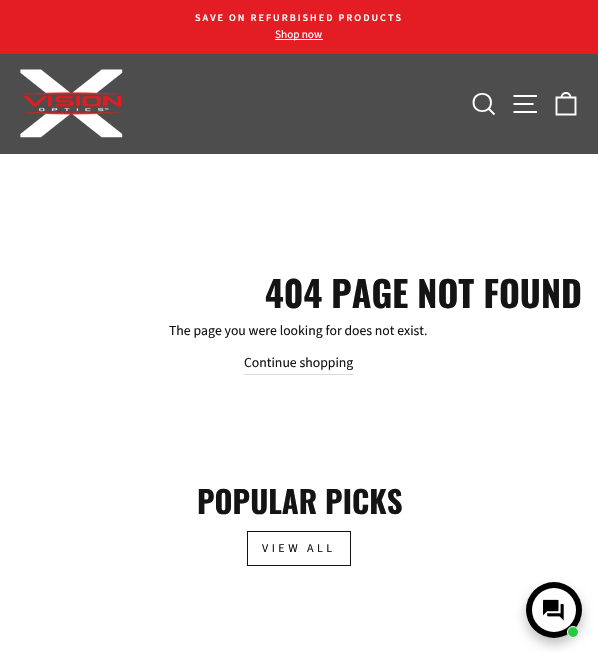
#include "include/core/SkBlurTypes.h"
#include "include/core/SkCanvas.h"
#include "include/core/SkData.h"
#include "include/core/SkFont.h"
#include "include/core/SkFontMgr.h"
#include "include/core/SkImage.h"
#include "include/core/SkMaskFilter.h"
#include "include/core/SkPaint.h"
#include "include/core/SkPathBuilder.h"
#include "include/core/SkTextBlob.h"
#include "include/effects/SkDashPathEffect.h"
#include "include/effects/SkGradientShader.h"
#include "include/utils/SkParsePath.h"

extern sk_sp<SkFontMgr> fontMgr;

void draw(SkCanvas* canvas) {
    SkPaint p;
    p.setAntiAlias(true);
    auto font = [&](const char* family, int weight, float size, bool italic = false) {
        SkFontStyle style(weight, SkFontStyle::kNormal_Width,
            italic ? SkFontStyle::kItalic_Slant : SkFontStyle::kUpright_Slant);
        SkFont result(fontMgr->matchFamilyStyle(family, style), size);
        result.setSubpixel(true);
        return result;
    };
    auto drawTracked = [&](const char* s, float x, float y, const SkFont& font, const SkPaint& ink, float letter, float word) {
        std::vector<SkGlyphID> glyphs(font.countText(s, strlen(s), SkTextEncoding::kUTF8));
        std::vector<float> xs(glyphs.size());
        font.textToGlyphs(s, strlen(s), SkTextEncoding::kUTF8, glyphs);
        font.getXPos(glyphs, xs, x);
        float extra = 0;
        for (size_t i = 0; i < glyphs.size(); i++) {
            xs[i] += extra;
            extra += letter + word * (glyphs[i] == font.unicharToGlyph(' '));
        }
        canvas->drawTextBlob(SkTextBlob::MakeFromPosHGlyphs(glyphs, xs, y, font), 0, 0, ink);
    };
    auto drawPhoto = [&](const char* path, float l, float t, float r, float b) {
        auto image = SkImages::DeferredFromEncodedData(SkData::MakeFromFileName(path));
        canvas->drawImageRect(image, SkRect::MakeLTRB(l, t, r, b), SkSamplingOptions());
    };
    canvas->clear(0xFFFFFFFF);
    p.setColor(0xFFE31D23);
    canvas->drawRect(SkRect::MakeLTRB(0, 0, 598, 54), p);
    auto font1 = font("Source Sans Pro", 600, 10.1f);
    p.setColor(0xFFFFFFFF);
    drawTracked("SAVE ON REFURBISHED PRODUCTS", 195, 21, font1, p, 2, 0);
    canvas->drawRect(SkRect::MakeLTRB(275, 39, 323, 40), p);
    auto font2 = font("Source Sans Pro", 400, 11.25f);
    canvas->drawString("Shop now", 275, 38, font2, p);
    p.setColor(0xFF4D4D4D);
    canvas->drawRect(SkRect::MakeLTRB(0, 54, 598, 154), p);
    drawPhoto("media/1.png", 20, 69, 123, 138);
    p.setStyle(SkPaint::kStroke_Style);
    p.setStrokeWidth(1.9f);
    p.setColor(0xFFFFFFFF);
    canvas->drawPath(SkPathBuilder().moveTo(491, 102.5f).cubicTo(491, 114, 473.5f, 114, 473.5f, 102.5f).cubicTo(473.5f, 91, 491, 91, 491, 102.5f).close().moveTo(494.5f, 114.5f).lineTo(488.5f, 108.5f).detach(), p);
    canvas->drawPath(SkPathBuilder().moveTo(513.5f, 96).lineTo(537, 96).moveTo(513.5f, 104).lineTo(533.5f, 104).moveTo(513.5f, 112).lineTo(537, 112).detach(), p);
    canvas->drawPath(SkPathBuilder().moveTo(556.5f, 97.5f).lineTo(575.5f, 97.5f).lineTo(575.5f, 114.5f).lineTo(556.5f, 114.5f).close().moveTo(561.5f, 97.5f).cubicTo(561.5f, 91.5f, 570.5f, 91.5f, 570.5f, 97.5f).detach(), p);
    auto font3 = font("Oswald", 700, 35.75f);
    p.setStyle(SkPaint::kFill_Style);
    p.setColor(0xFF141414);
    canvas->drawString("404 PAGE NOT FOUND", 265, 308, font3, p);
    auto font4 = font("Source Sans Pro", 400, 13.75f);
    canvas->drawString("The page you were looking for does not exist.", 169, 335, font4, p);
    p.setColor(0xFFDCDCDC);
    canvas->drawRect(SkRect::MakeLTRB(244, 374, 354, 375), p);
    p.setColor(0xFF141414);
    canvas->drawString("Continue shopping", 244, 367, font4, p);
    auto font5 = font("Oswald", 700, 30.75f);
    canvas->drawString("POPULAR PICKS", 197, 514, font5, p);
    p.setStyle(SkPaint::kStroke_Style);
    p.setStrokeWidth(1);
    canvas->drawRect(SkRect::MakeLTRB(247.5f, 531.5f, 350.5f, 565.5f), p);
    auto font6 = font("Source Sans Pro", 400, 12);
    p.setStyle(SkPaint::kFill_Style);
    drawTracked("VIEW ALL", 262, 552, font6, p, 3.5f, 0);
    p.setColor(0x40000000);
    p.setMaskFilter(SkMaskFilter::MakeBlur(kNormal_SkBlurStyle, 6));
    canvas->drawRoundRect(SkRect::MakeLTRB(526, 588, 582, 644), 28, 28, p);
    p.setMaskFilter(nullptr);
    p.setColor(0xFF000000);
    canvas->drawCircle(554, 610, 28, p);
    p.setColor(0xFFFFFFFF);
    canvas->drawCircle(554, 610, 22, p);
    drawPhoto("media/2.png", 543, 599, 564, 621);
    p.setColor(0xFF27CA40);
    canvas->drawCircle(573, 632, 5.5f, p);
    p.setStyle(SkPaint::kStroke_Style);
    p.setColor(0xFFFFFFFF);
    canvas->drawCircle(573, 632, 5.5f, p);
}
